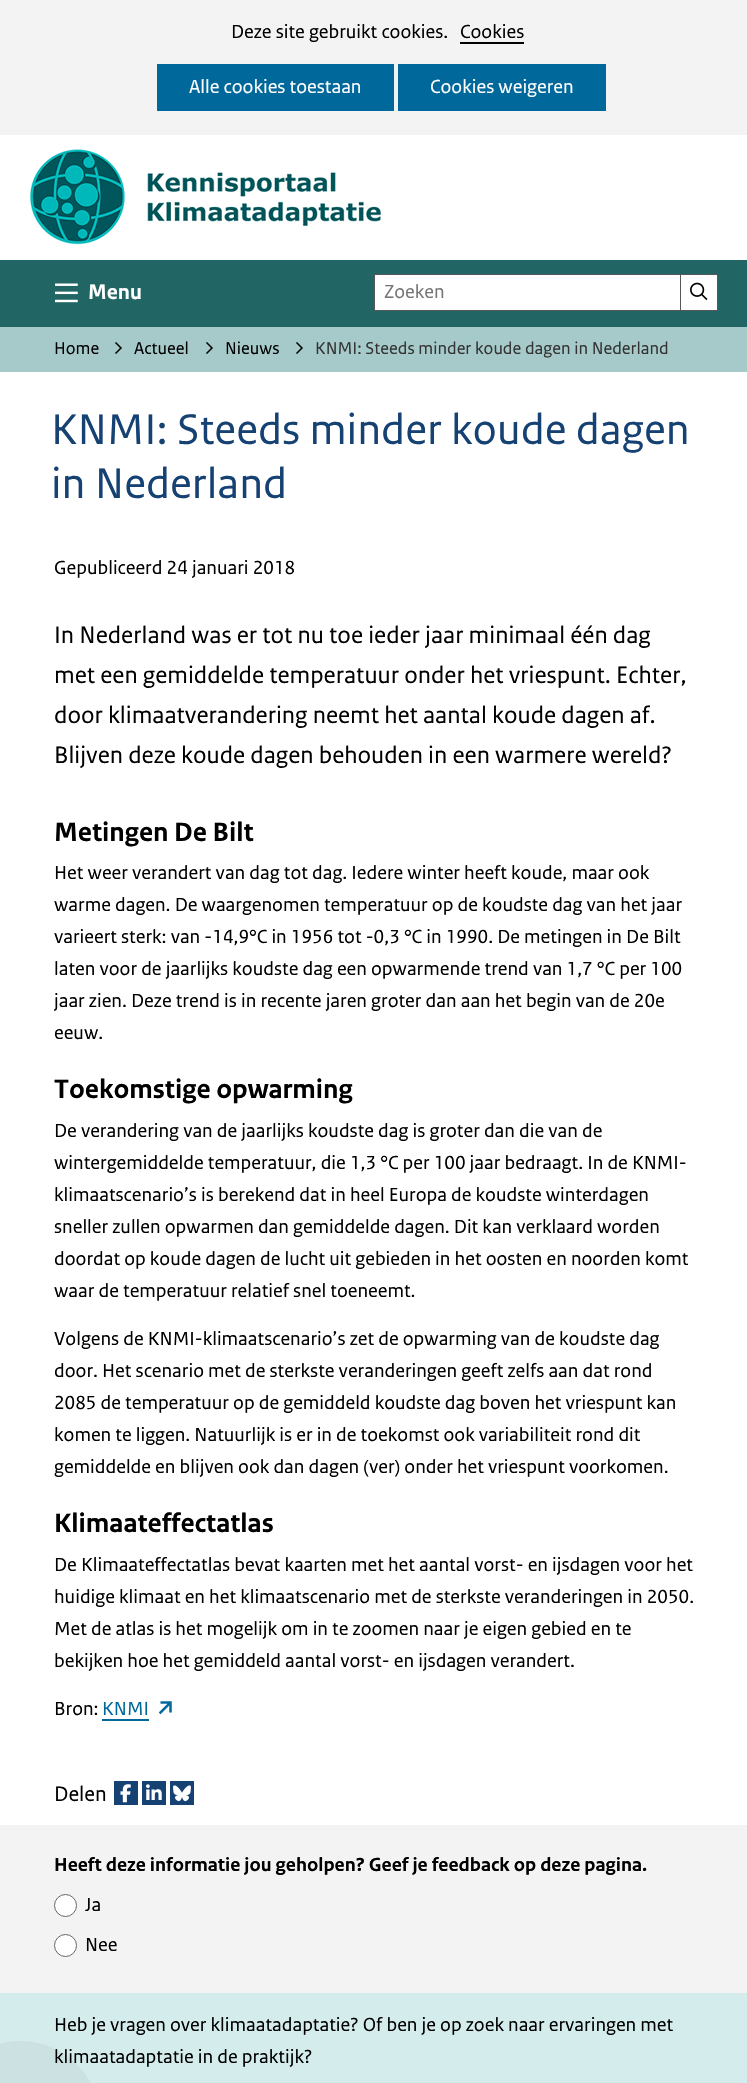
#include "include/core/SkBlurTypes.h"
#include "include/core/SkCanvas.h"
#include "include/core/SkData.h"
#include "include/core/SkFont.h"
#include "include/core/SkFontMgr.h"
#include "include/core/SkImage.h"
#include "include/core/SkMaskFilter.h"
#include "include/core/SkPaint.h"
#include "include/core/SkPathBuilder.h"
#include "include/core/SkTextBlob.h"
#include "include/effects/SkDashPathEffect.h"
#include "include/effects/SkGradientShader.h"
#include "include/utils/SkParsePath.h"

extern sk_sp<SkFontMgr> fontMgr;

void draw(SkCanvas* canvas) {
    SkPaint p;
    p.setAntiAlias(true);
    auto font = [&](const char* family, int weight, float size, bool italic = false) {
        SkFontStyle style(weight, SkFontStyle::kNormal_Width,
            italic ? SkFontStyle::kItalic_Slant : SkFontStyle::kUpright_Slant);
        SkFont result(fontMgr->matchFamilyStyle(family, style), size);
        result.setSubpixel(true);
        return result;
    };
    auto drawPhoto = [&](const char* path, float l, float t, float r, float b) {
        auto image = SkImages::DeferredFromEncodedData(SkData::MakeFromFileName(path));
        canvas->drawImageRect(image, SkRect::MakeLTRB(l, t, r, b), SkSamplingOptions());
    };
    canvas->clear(0xFFFFFFFF);
    p.setColor(0xFFF3F3F3);
    canvas->drawRect(SkRect::MakeLTRB(0, 0, 747, 135), p);
    auto font1 = font("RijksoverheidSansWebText", 400, 20);
    p.setColor(0xFF000000);
    canvas->drawString("Deze site gebruikt cookies.", 231, 38, font1, p);
    canvas->drawString("Cookies", 460, 38, font1, p);
    canvas->drawRect(SkRect::MakeLTRB(460, 42, 524, 44), p);
    p.setColor(0xFF01689B);
    canvas->drawRect(SkRect::MakeLTRB(157, 64, 394, 111), p);
    p.setColor(0xFFFFFFFF);
    canvas->drawString("Alle cookies toestaan", 189, 93, font1, p);
    p.setColor(0xFF01689B);
    canvas->drawRect(SkRect::MakeLTRB(398, 64, 606, 111), p);
    p.setColor(0xFFFFFFFF);
    canvas->drawString("Cookies weigeren", 430, 93, font1, p);
    drawPhoto("media/1.png", 30, 149, 381, 245);
    p.setColor(0xFF216665);
    canvas->drawRect(SkRect::MakeLTRB(0, 260, 747, 327), p);
    drawPhoto("media/2.png", 55, 283, 78, 303);
    auto font2 = font("RijksoverheidSansWebText", 700, 22);
    p.setColor(0xFFFFFFFF);
    canvas->drawString("Menu", 88, 299, font2, p);
    canvas->drawRect(SkRect::MakeLTRB(374.5f, 274.5f, 680.5f, 310.5f), p);
    p.setStyle(SkPaint::kStroke_Style);
    p.setStrokeWidth(1);
    p.setColor(0xFF575757);
    canvas->drawRect(SkRect::MakeLTRB(374.5f, 274.5f, 680.5f, 310.5f), p);
    p.setStyle(SkPaint::kFill_Style);
    p.setColor(0xFF757575);
    canvas->drawString("Zoeken", 384, 298, font1, p);
    p.setColor(0xFFFFFFFF);
    canvas->drawRect(SkRect::MakeLTRB(680.5f, 274.5f, 717.5f, 310.5f), p);
    p.setStyle(SkPaint::kStroke_Style);
    p.setColor(0xFF575757);
    canvas->drawRect(SkRect::MakeLTRB(680.5f, 274.5f, 717.5f, 310.5f), p);
    drawPhoto("media/3.png", 690, 282, 708, 301);
    p.setStyle(SkPaint::kFill_Style);
    p.setColor(0xFFA6C9C9);
    canvas->drawRect(SkRect::MakeLTRB(0, 327, 747, 372), p);
    auto font3 = font("RijksoverheidSansWebText", 400, 18);
    p.setColor(0xFF000000);
    canvas->drawString("Home", 54, 354, font3, p);
    drawPhoto("media/4.png", 115, 342, 122, 354);
    canvas->drawString("Actueel", 134, 354, font3, p);
    drawPhoto("media/4.png", 206, 342, 213, 354);
    canvas->drawString("Nieuws", 225, 354, font3, p);
    drawPhoto("media/4.png", 296, 342, 303, 354);
    p.setColor(0xFF333333);
    canvas->drawString("KNMI: Steeds minder koude dagen in Nederland", 315, 354, font3, p);
    auto font4 = font("RijksoverheidSansWebText", 400, 45);
    p.setColor(0xFF154273);
    canvas->drawString("KNMI: Steeds minder koude dagen", 51, 444, font4, p);
    canvas->drawString("in Nederland", 51, 498, font4, p);
    p.setColor(0xFF000000);
    canvas->drawString("Gepubliceerd 24 januari 2018", 54, 574, font1, p);
    auto font5 = font("RijksoverheidSansWebText", 400, 25);
    {
        const struct { const char* s; float x, y; } items[] = {
            {"In Nederland was er tot nu toe ieder jaar minimaal één dag", 54, 643},
            {"met een gemiddelde temperatuur onder het vriespunt. Echter,", 54, 683},
            {"door klimaatverandering neemt het aantal koude dagen af.", 54, 723},
            {"Blijven deze koude dagen behouden in een warmere wereld?", 54, 763},
        };
        for (auto [s, x, y] : items) {
            canvas->drawString(s, x, y, font5, p);
        }
    }
    auto font6 = font("RijksoverheidSansWebText", 700, 28);
    canvas->drawString("Metingen De Bilt", 54, 841, font6, p);
    {
        const struct { const char* s; float x, y; } items[] = {
            {"Het weer verandert van dag tot dag. Iedere winter heeft koude, maar ook", 54, 879},
            {"warme dagen. De waargenomen temperatuur op de koudste dag van het jaar", 54, 911},
            {"varieert sterk: van -14,9°C in 1956 tot -0,3 °C in 1990. De metingen in De Bilt", 54, 943},
            {"laten voor de jaarlijks koudste dag een opwarmende trend van 1,7 °C per 100", 54, 975},
            {"jaar zien. Deze trend is in recente jaren groter dan aan het begin van de 20e", 54, 1007},
            {"eeuw.", 54, 1039},
        };
        for (auto [s, x, y] : items) {
            canvas->drawString(s, x, y, font1, p);
        }
    }
    canvas->drawString("Toekomstige opwarming", 54, 1098, font6, p);
    {
        const struct { const char* s; float x, y; } items[] = {
            {"De verandering van de jaarlijks koudste dag is groter dan die van de", 54, 1137},
            {"wintergemiddelde temperatuur, die 1,3 °C per 100 jaar bedraagt. In de KNMI-", 54, 1169},
            {"klimaatscenario’s is berekend dat in heel Europa de koudste winterdagen", 54, 1201},
            {"sneller zullen opwarmen dan gemiddelde dagen. Dit kan verklaard worden", 54, 1233},
            {"doordat op koude dagen de lucht uit gebieden in het oosten en noorden komt", 54, 1265},
            {"waar de temperatuur relatief snel toeneemt.", 54, 1297},
            {"Volgens de KNMI-klimaatscenario’s zet de opwarming van de koudste dag", 54, 1345},
            {"door. Het scenario met de sterkste veranderingen geeft zelfs aan dat rond", 54, 1377},
            {"2085 de temperatuur op de gemiddeld koudste dag boven het vriespunt kan", 54, 1409},
            {"komen te liggen. Natuurlijk is er in de toekomst ook variabiliteit rond dit", 54, 1441},
            {"gemiddelde en blijven ook dan dagen (ver) onder het vriespunt voorkomen.", 54, 1473},
        };
        for (auto [s, x, y] : items) {
            canvas->drawString(s, x, y, font1, p);
        }
    }
    canvas->drawString("Klimaateffectatlas", 54, 1532, font6, p);
    {
        const struct { const char* s; float x, y; } items[] = {
            {"De Klimaateffectatlas bevat kaarten met het aantal vorst- en ijsdagen voor het", 54, 1571},
            {"huidige klimaat en het klimaatscenario met de sterkste veranderingen in 2050.", 54, 1603},
            {"Met de atlas is het mogelijk om in te zoomen naar je eigen gebied en te", 54, 1635},
            {"bekijken hoe het gemiddeld aantal vorst- en ijsdagen verandert.", 54, 1667},
            {"Bron:", 54, 1715},
        };
        for (auto [s, x, y] : items) {
            canvas->drawString(s, x, y, font1, p);
        }
    }
    p.setColor(0xFF01689B);
    canvas->drawString("KNMI", 102, 1715, font1, p);
    canvas->drawRect(SkRect::MakeLTRB(102, 1719, 149, 1721), p);
    drawPhoto("media/5.png", 158, 1701, 172, 1715);
    auto font7 = font("RijksoverheidSansWebText", 400, 22);
    p.setColor(0xFF000000);
    canvas->drawString("Delen", 54, 1801, font7, p);
    p.setColor(0xFF154273);
    canvas->drawRect(SkRect::MakeLTRB(114, 1781, 138, 1805), p);
    drawPhoto("media/6.png", 120, 1784, 131, 1803);
    canvas->drawRect(SkRect::MakeLTRB(142, 1781, 166, 1805), p);
    drawPhoto("media/7.png", 146, 1784, 162, 1800);
    canvas->drawRect(SkRect::MakeLTRB(170, 1781, 194, 1805), p);
    drawPhoto("media/8.png", 173, 1785, 191, 1802);
    p.setColor(0xFFF3F3F3);
    canvas->drawRect(SkRect::MakeLTRB(0, 1825, 747, 1993), p);
    auto font8 = font("RijksoverheidSansWebText", 700, 20);
    p.setColor(0xFF000000);
    canvas->drawString("Heeft deze informatie jou geholpen? Geef je feedback op deze pagina.", 54, 1871, font8, p);
    p.setColor(0xFFFFFFFF);
    canvas->drawCircle(65.5f, 1905.5f, 11, p);
    p.setStyle(SkPaint::kStroke_Style);
    p.setColor(0xFF666666);
    canvas->drawCircle(65.5f, 1905.5f, 11, p);
    p.setStyle(SkPaint::kFill_Style);
    p.setColor(0xFF000000);
    canvas->drawString("Ja", 85, 1911, font1, p);
    p.setColor(0xFFFFFFFF);
    canvas->drawCircle(65.5f, 1945.5f, 11, p);
    p.setStyle(SkPaint::kStroke_Style);
    p.setColor(0xFF666666);
    canvas->drawCircle(65.5f, 1945.5f, 11, p);
    p.setStyle(SkPaint::kFill_Style);
    p.setColor(0xFF000000);
    canvas->drawString("Nee", 85, 1951, font1, p);
    p.setColor(0xFFD5ECEC);
    canvas->drawRect(SkRect::MakeLTRB(0, 1993, 747, 2083), p);
    p.setColor(0xFFCCE2E2);
    canvas->drawPath(SkPathBuilder(SkPathFillType::kEvenOdd).moveTo(21, 2041).cubicTo(-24, 2041, -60, 2079, -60, 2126).cubicTo(-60, 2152, -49, 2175, -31, 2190).lineTo(-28, 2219).lineTo(0, 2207).cubicTo(7, 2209, 14, 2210, 21, 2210).cubicTo(66, 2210, 102, 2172, 102, 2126).cubicTo(102, 2079, 66, 2041, 21, 2041).close().moveTo(45, 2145).lineTo(-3, 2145).lineTo(-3, 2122).cubicTo(26, 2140, 16, 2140, 45, 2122).close().moveTo(45, 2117).lineTo(24, 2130).cubicTo(22, 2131, 20, 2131, 18, 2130).lineTo(-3, 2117).lineTo(-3, 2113).lineTo(45, 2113).close().detach(), p);
    p.setColor(0xFF000000);
    canvas->drawString("Heb je vragen over klimaatadaptatie? Of ben je op zoek naar ervaringen met", 54, 2031, font1, p);
    canvas->drawString("klimaatadaptatie in de praktijk?", 54, 2063, font1, p);
}
